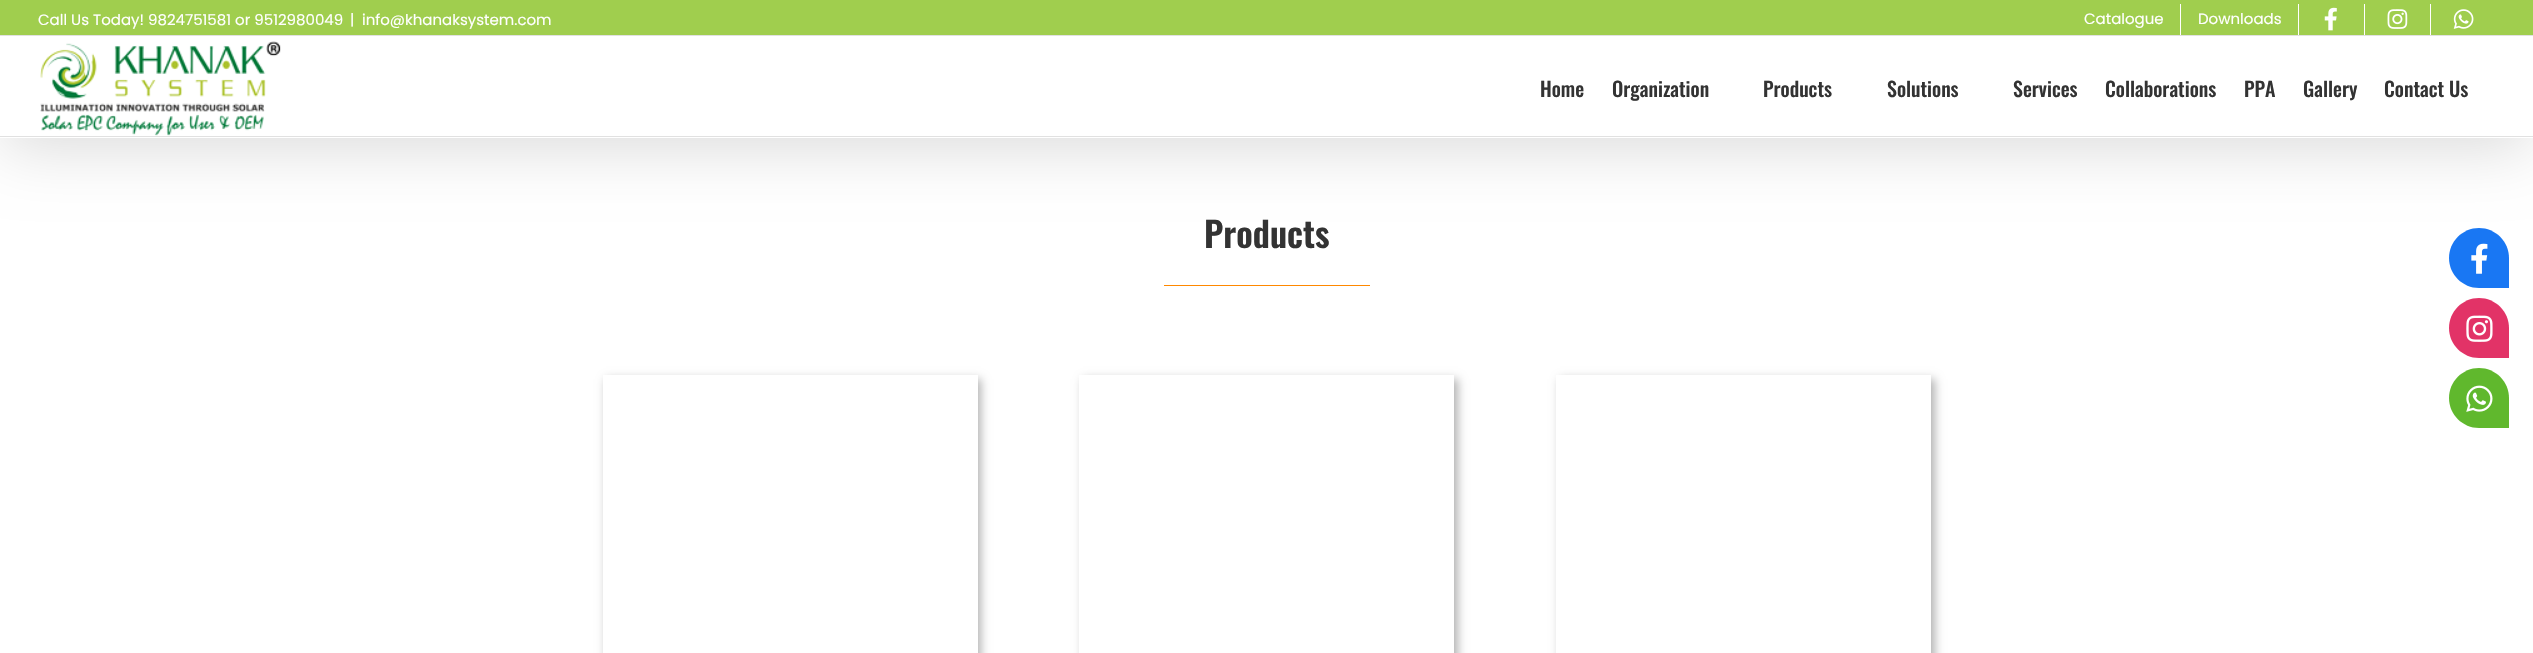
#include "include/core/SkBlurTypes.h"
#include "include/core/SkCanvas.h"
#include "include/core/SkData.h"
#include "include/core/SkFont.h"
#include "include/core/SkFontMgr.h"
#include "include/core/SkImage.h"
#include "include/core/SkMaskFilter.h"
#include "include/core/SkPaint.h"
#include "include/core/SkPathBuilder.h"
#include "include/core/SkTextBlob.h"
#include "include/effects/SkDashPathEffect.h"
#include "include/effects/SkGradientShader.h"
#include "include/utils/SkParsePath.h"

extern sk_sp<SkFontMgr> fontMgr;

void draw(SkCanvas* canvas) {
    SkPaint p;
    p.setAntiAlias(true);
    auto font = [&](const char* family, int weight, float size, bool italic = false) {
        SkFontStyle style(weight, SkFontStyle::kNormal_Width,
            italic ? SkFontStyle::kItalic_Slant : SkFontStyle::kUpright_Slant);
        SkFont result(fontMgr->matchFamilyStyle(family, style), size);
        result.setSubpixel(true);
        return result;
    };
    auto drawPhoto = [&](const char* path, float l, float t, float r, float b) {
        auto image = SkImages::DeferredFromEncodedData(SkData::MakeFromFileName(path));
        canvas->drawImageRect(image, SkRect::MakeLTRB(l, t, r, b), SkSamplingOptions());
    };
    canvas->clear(0xFFFFFFFF);
    p.setColor(0x24000000);
    p.setMaskFilter(SkMaskFilter::MakeBlur(kNormal_SkBlurStyle, 31));
    canvas->drawRect(SkRect::MakeLTRB(3, 15, 2531, 148), p);
    p.setMaskFilter(nullptr);
    p.setColor(0xFFA0CE4E);
    canvas->drawRect(SkRect::MakeLTRB(0, 0, 2533, 35), p);
    p.setColor(0xFFE1E1E1);
    canvas->drawRect(SkRect::MakeLTRB(0, 35, 2533, 36), p);
    auto font1 = font("Poppins", 400, 15);
    p.setColor(0xFFFFFFFF);
    {
        const struct { const char* s; float x, y; } items[] = {
            {"Call Us Today! 9824751581 or 9512980049", 38, 25},
            {"|", 350, 25},
            {"info@khanaksystem.com", 362, 25},
            {"Catalogue", 2084, 24},
        };
        for (auto [s, x, y] : items) {
            canvas->drawString(s, x, y, font1, p);
        }
    }
    canvas->drawRect(SkRect::MakeLTRB(2180, 4, 2181, 35), p);
    canvas->drawString("Downloads", 2198, 24, font1, p);
    canvas->drawRect(SkRect::MakeLTRB(2298, 4, 2299, 35), p);
    drawPhoto("media/1.png", 2324, 7, 2337, 31);
    canvas->drawRect(SkRect::MakeLTRB(2364, 4, 2365, 35), p);
    drawPhoto("media/2.png", 2387, 9, 2408, 29);
    canvas->drawRect(SkRect::MakeLTRB(2430, 4, 2431, 35), p);
    drawPhoto("media/3.png", 2453, 9, 2474, 29);
    canvas->drawRect(SkRect::MakeLTRB(0, 36, 2533, 138), p);
    p.setColor(0xFFE1E1E1);
    canvas->drawRect(SkRect::MakeLTRB(0, 136, 2533, 137), p);
    drawPhoto("media/4.png", 40, 41, 281, 136);
    auto font2 = font("Oswald", 500, 20);
    p.setColor(0xFF333333);
    {
        const struct { const char* s; float x, y; } items[] = {
            {"Home", 1540, 97},
            {"Organization", 1612, 97},
            {"Products", 1763, 97},
            {"Solutions", 1887, 97},
            {"Services", 2013, 97},
            {"Collaborations", 2105, 97},
            {"PPA", 2244, 97},
            {"Gallery", 2303, 97},
            {"Contact Us", 2384, 97},
        };
        for (auto [s, x, y] : items) {
            canvas->drawString(s, x, y, font2, p);
        }
    }
    auto font3 = font("Oswald", 600, 35);
    canvas->drawString("Products", 1204, 248, font3, p);
    p.setColor(0xFFFF8800);
    canvas->drawRect(SkRect::MakeLTRB(1164, 285, 1370, 286), p);
    canvas->save();
    canvas->clipPath(SkPathBuilder(SkPathFillType::kEvenOdd).moveTo(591, 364).lineTo(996, 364).lineTo(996, 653).lineTo(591, 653).close().moveTo(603, 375).lineTo(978, 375).lineTo(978, 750).lineTo(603, 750).close().detach(), true);
    p.setColor(0x4D000000);
    p.setMaskFilter(SkMaskFilter::MakeBlur(kNormal_SkBlurStyle, 4.5f));
    canvas->drawRect(SkRect::MakeLTRB(606, 379, 981, 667), p);
    p.setMaskFilter(nullptr);
    canvas->restore();
    canvas->save();
    canvas->clipPath(SkPathBuilder(SkPathFillType::kEvenOdd).moveTo(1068, 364).lineTo(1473, 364).lineTo(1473, 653).lineTo(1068, 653).close().moveTo(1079, 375).lineTo(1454, 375).lineTo(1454, 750).lineTo(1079, 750).close().detach(), true);
    p.setMaskFilter(SkMaskFilter::MakeBlur(kNormal_SkBlurStyle, 4.5f));
    canvas->drawRect(SkRect::MakeLTRB(1083, 379, 1458, 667), p);
    p.setMaskFilter(nullptr);
    canvas->restore();
    canvas->save();
    canvas->clipPath(SkPathBuilder(SkPathFillType::kEvenOdd).moveTo(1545, 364).lineTo(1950, 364).lineTo(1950, 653).lineTo(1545, 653).close().moveTo(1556, 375).lineTo(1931, 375).lineTo(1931, 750).lineTo(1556, 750).close().detach(), true);
    p.setMaskFilter(SkMaskFilter::MakeBlur(kNormal_SkBlurStyle, 4.5f));
    canvas->drawRect(SkRect::MakeLTRB(1560, 379, 1935, 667), p);
    p.setMaskFilter(nullptr);
    canvas->restore();
    p.setColor(0xFF1977F3);
    canvas->drawPath(SkPathBuilder().moveTo(2479, 228).cubicTo(2495.5f, 228, 2509, 241.5f, 2509, 258).lineTo(2509, 288).lineTo(2479, 288).cubicTo(2462.5f, 288, 2449, 274.5f, 2449, 258).cubicTo(2449, 241.5f, 2462.5f, 228, 2479, 228).close().detach(), p);
    drawPhoto("media/5.png", 2471, 243, 2488, 274);
    p.setColor(0xFFE23367);
    canvas->drawPath(SkPathBuilder().moveTo(2479, 298).cubicTo(2495.5f, 298, 2509, 311.5f, 2509, 328).lineTo(2509, 358).lineTo(2479, 358).cubicTo(2462.5f, 358, 2449, 344.5f, 2449, 328).cubicTo(2449, 311.5f, 2462.5f, 298, 2479, 298).close().detach(), p);
    drawPhoto("media/6.png", 2466, 315, 2493, 342);
    p.setColor(0xFF60B82D);
    canvas->drawPath(SkPathBuilder().moveTo(2479, 368).cubicTo(2495.5f, 368, 2509, 381.5f, 2509, 398).lineTo(2509, 428).lineTo(2479, 428).cubicTo(2462.5f, 428, 2449, 414.5f, 2449, 398).cubicTo(2449, 381.5f, 2462.5f, 368, 2479, 368).close().detach(), p);
    drawPhoto("media/7.png", 2466, 385, 2493, 412);
}
